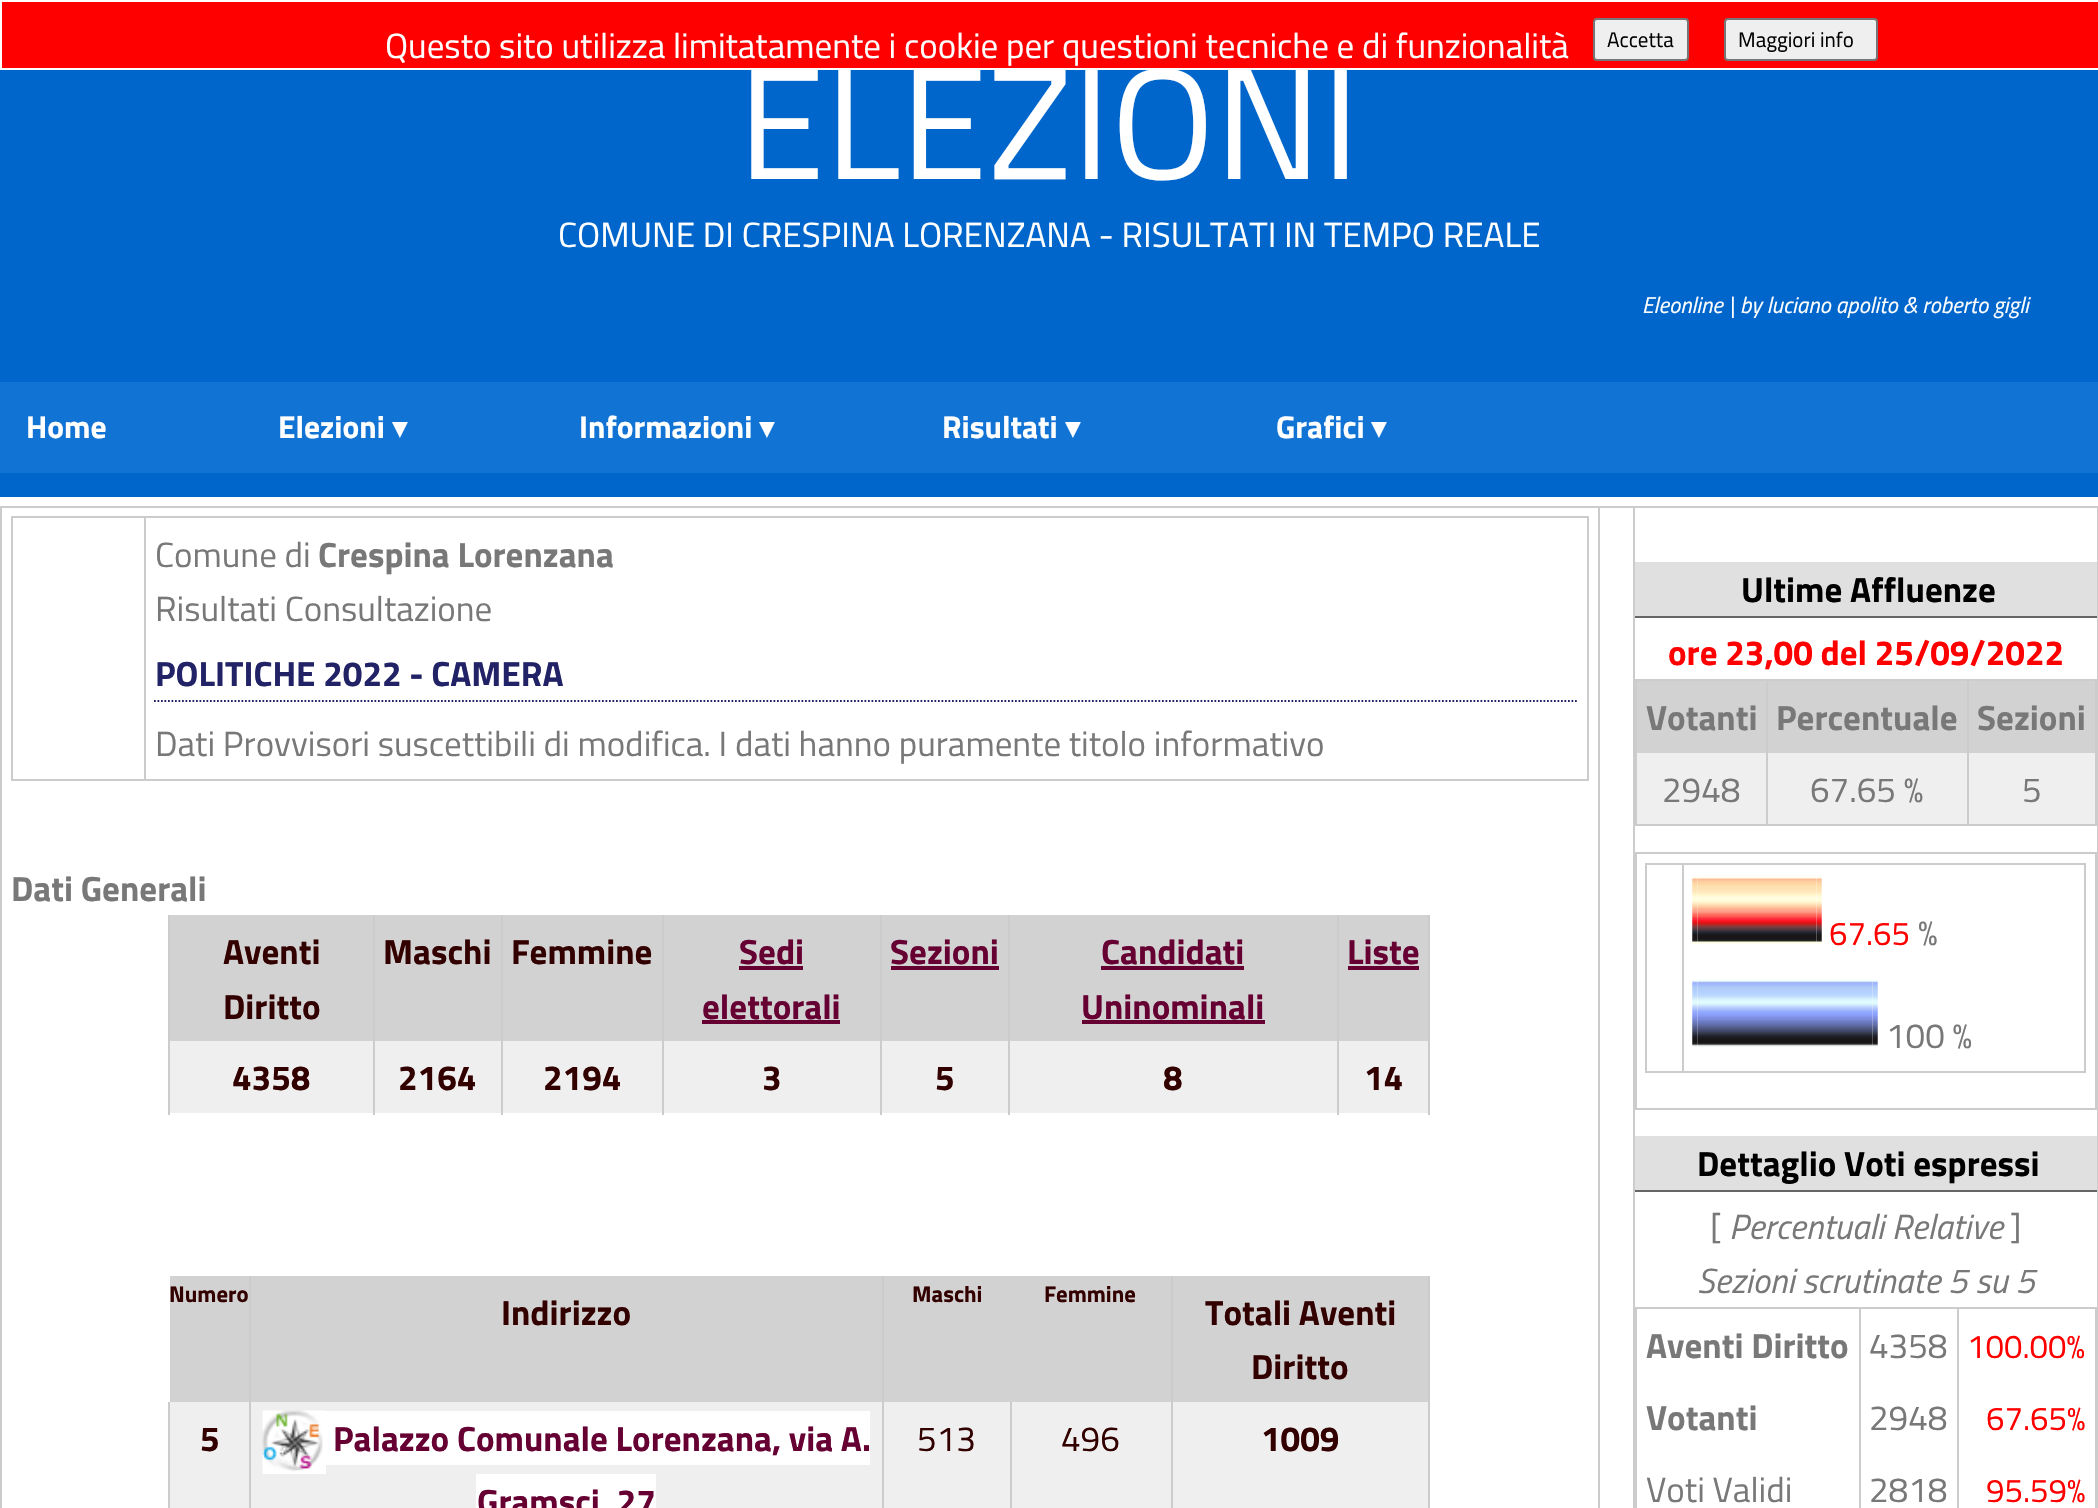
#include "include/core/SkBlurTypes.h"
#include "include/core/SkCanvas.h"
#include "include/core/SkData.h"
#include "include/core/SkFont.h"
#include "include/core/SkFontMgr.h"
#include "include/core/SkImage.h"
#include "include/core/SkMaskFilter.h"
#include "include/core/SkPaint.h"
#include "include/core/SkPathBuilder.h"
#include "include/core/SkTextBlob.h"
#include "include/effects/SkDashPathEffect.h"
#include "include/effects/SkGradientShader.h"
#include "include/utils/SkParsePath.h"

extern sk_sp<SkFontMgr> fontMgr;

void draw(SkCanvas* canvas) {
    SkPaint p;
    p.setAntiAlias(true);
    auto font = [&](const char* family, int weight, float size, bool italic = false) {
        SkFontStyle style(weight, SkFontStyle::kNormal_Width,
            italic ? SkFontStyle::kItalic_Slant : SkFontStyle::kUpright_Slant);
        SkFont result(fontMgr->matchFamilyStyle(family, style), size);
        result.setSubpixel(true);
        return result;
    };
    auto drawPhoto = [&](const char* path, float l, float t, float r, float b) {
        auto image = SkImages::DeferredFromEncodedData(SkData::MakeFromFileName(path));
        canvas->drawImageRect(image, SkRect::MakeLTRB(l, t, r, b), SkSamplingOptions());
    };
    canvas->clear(0xFFFFFFFF);
    {
        const struct { float l, t, r, b; SkColor color; } items[] = {
            {0, 70, 2098, 497, 0xFF0066CB},
            {0, 506, 2098, 508, 0xFFCCCCCC},
            {2097, 506, 2098, 1508, 0xFFCCCCCC},
            {0, 506, 2, 1508, 0xFFCCCCCC},
            {2, 2, 2098, 68, 0xFFFF0000},
        };
        for (auto [l, t, r, b, color] : items) {
            p.setColor(color);
            canvas->drawRect(SkRect::MakeLTRB(l, t, r, b), p);
        }
    }
    auto font1 = font("Titillium Web", 400, 35);
    p.setColor(0xFFFFFFFF);
    canvas->drawString("Questo sito utilizza limitatamente i cookie per questioni tecniche e di funzionalità", 385, 58, font1, p);
    p.setColor(0xFFEFEFEF);
    canvas->drawRoundRect(SkRect::MakeLTRB(1594, 19, 1688, 60), 3, 3, p);
    p.setStyle(SkPaint::kStroke_Style);
    p.setStrokeWidth(2);
    p.setColor(0xFF767676);
    canvas->drawRoundRect(SkRect::MakeLTRB(1594, 19, 1688, 60), 3, 3, p);
    auto font2 = font("Titillium Web", 400, 21);
    p.setStyle(SkPaint::kFill_Style);
    p.setColor(0xFF000000);
    canvas->drawString("Accetta", 1607, 47, font2, p);
    p.setColor(0xFFEFEFEF);
    canvas->drawRoundRect(SkRect::MakeLTRB(1725, 19, 1877, 60), 3, 3, p);
    p.setStyle(SkPaint::kStroke_Style);
    p.setColor(0xFF767676);
    canvas->drawRoundRect(SkRect::MakeLTRB(1725, 19, 1877, 60), 3, 3, p);
    p.setStyle(SkPaint::kFill_Style);
    p.setColor(0xFF000000);
    canvas->drawString("Maggiori info", 1738, 47, font2, p);
    p.setColor(0xFFE0E0E0);
    canvas->drawRect(SkRect::MakeLTRB(1635, 562, 2097, 616), p);
    p.setColor(0xFF666666);
    canvas->drawRect(SkRect::MakeLTRB(1635, 616, 2097, 618), p);
    auto font3 = font("Titillium Web", 700, 35);
    p.setColor(0xFF000000);
    canvas->drawString("Ultime Affluenze", 1741, 602, font3, p);
    p.setColor(0xFFFF0000);
    canvas->drawString("ore 23,00 del 25/09/2022", 1668, 665, font3, p);
    {
        const struct { float l, t, r, b; SkColor color; } items[] = {
            {1635, 679, 2097, 681, 0xFFCCCCCC},
            {2095, 679, 2097, 826, 0xFFCCCCCC},
            {1635, 824, 2097, 826, 0xFFCCCCCC},
            {1635, 679, 1637, 826, 0xFFCCCCCC},
            {1637, 681, 2095, 753, 0xFFD2D2D2},
        };
        for (auto [l, t, r, b, color] : items) {
            p.setColor(color);
            canvas->drawRect(SkRect::MakeLTRB(l, t, r, b), p);
        }
    }
    p.setColor(0xFF787878);
    {
        const struct { const char* s; float x, y; } items[] = {
            {"Votanti", 1646, 730},
            {"Percentuale", 1776, 730},
            {"Sezioni", 1977, 730},
        };
        for (auto [s, x, y] : items) {
            canvas->drawString(s, x, y, font3, p);
        }
    }
    p.setColor(0xFFEFEFEF);
    canvas->drawRect(SkRect::MakeLTRB(1637, 753, 2095, 824), p);
    p.setColor(0xFF787878);
    canvas->drawString("2948", 1662, 802, font1, p);
    p.setColor(0xFFCCCCCC);
    canvas->drawRect(SkRect::MakeLTRB(1766, 679, 1768, 826), p);
    p.setColor(0xFF787878);
    canvas->drawString("67.65 %", 1810, 802, font1, p);
    p.setColor(0xFFCCCCCC);
    canvas->drawRect(SkRect::MakeLTRB(1967, 679, 1969, 826), p);
    p.setColor(0xFF787878);
    canvas->drawString("5", 2022, 802, font1, p);
    {
        const struct { float l, t, r, b; SkColor color; } items[] = {
            {1635, 852, 2097, 854, 0xFFCCCCCC},
            {2095, 852, 2097, 1110, 0xFFCCCCCC},
            {1635, 1108, 2097, 1110, 0xFFCCCCCC},
            {1635, 852, 1637, 1110, 0xFFCCCCCC},
            {1645, 863, 2086, 865, 0xFFCCCCCC},
            {2084, 863, 2086, 1073, 0xFFCCCCCC},
            {1645, 1071, 2086, 1073, 0xFFCCCCCC},
            {1645, 863, 1647, 1073, 0xFFCCCCCC},
        };
        for (auto [l, t, r, b, color] : items) {
            p.setColor(color);
            canvas->drawRect(SkRect::MakeLTRB(l, t, r, b), p);
        }
    }
    drawPhoto("media/1.png", 1692, 875, 1698, 944);
    drawPhoto("media/2.png", 1697, 875, 1817, 944);
    drawPhoto("media/3.png", 1816, 875, 1822, 944);
    auto font4 = font("Titillium Web", 400, 33);
    p.setColor(0xFFFF0000);
    canvas->drawString("67.65", 1829, 945, font4, p);
    p.setColor(0xFF787878);
    canvas->drawString("%", 1918, 945, font1, p);
    p.setColor(0xFFCCCCCC);
    canvas->drawRect(SkRect::MakeLTRB(1682, 863, 1684, 1073), p);
    drawPhoto("media/4.png", 1692, 979, 1698, 1047);
    drawPhoto("media/5.png", 1697, 979, 1873, 1047);
    drawPhoto("media/6.png", 1872, 979, 1878, 1047);
    p.setColor(0xFF787878);
    canvas->drawString("100 %", 1886, 1048, font1, p);
    p.setColor(0xFFE0E0E0);
    canvas->drawRect(SkRect::MakeLTRB(1635, 1136, 2097, 1190), p);
    p.setColor(0xFF666666);
    canvas->drawRect(SkRect::MakeLTRB(1635, 1190, 2097, 1192), p);
    p.setColor(0xFF000000);
    canvas->drawString("Dettaglio Voti espressi", 1697, 1176, font3, p);
    p.setColor(0xFF787878);
    canvas->drawString("[", 1710, 1239, font1, p);
    auto font5 = font("Titillium Web", 400, 35, true);
    canvas->drawString("Percentuali Relative", 1729, 1239, font5, p);
    canvas->drawString("]", 2010, 1239, font1, p);
    canvas->drawString("Sezioni scrutinate 5 su 5", 1697, 1293, font5, p);
    {
        const struct { float l, t, r, b; SkColor color; } items[] = {
            {1635, 1307, 2097, 1309, 0xFFCCCCCC},
            {2095, 1307, 2097, 1508, 0xFFCCCCCC},
            {1635, 1307, 1637, 1508, 0xFFCCCCCC},
        };
        for (auto [l, t, r, b, color] : items) {
            p.setColor(color);
            canvas->drawRect(SkRect::MakeLTRB(l, t, r, b), p);
        }
    }
    p.setColor(0xFF787878);
    canvas->drawString("Aventi Diritto", 1646, 1358, font3, p);
    canvas->drawString("4358", 1869, 1358, font1, p);
    p.setColor(0xFFFF0000);
    canvas->drawString("100.00%", 1967, 1358, font4, p);
    p.setColor(0xFF787878);
    canvas->drawString("Votanti", 1646, 1430, font3, p);
    canvas->drawString("2948", 1869, 1430, font1, p);
    p.setColor(0xFFFF0000);
    canvas->drawString("67.65%", 1986, 1430, font4, p);
    p.setColor(0xFF787878);
    canvas->drawString("Voti Validi", 1646, 1502, font1, p);
    p.setColor(0xFFCCCCCC);
    canvas->drawRect(SkRect::MakeLTRB(1859, 1307, 1861, 1508), p);
    p.setColor(0xFF787878);
    canvas->drawString("2818", 1869, 1502, font1, p);
    p.setColor(0xFFCCCCCC);
    canvas->drawRect(SkRect::MakeLTRB(1957, 1307, 1959, 1508), p);
    p.setColor(0xFFFF0000);
    canvas->drawString("95.59%", 1986, 1502, font4, p);
    {
        const struct { float l, t, r, b; SkColor color; } items[] = {
            {11, 516, 1589, 518, 0xFFCCCCCC},
            {1587, 516, 1589, 781, 0xFFCCCCCC},
            {11, 779, 1589, 781, 0xFFCCCCCC},
            {11, 516, 13, 781, 0xFFCCCCCC},
            {144, 516, 146, 781, 0xFFCCCCCC},
        };
        for (auto [l, t, r, b, color] : items) {
            p.setColor(color);
            canvas->drawRect(SkRect::MakeLTRB(l, t, r, b), p);
        }
    }
    p.setColor(0xFF787878);
    canvas->drawString("Comune di", 155, 567, font1, p);
    canvas->drawString("Crespina Lorenzana", 318, 567, font3, p);
    canvas->drawString("Risultati Consultazione", 155, 621, font1, p);
    p.setStyle(SkPaint::kStroke_Style);
    p.setStrokeWidth(1.8f);
    p.setColor(0xFF222266);
    p.setPathEffect(SkDashPathEffect::Make({{1.75f, 1.75f}}, 0));
    canvas->drawPath(SkPathBuilder().moveTo(154, 701).lineTo(1578.5f, 701).detach(), p);
    p.setPathEffect(nullptr);
    p.setStyle(SkPaint::kFill_Style);
    canvas->drawString("POLITICHE 2022 - CAMERA", 155, 686, font3, p);
    p.setColor(0xFF787878);
    canvas->drawString("Dati Provvisori suscettibili di modifica. I dati hanno puramente titolo informativo", 155, 756, font1, p);
    canvas->drawString("Dati Generali", 11, 901, font3, p);
    p.setColor(0xFFD2D2D2);
    canvas->drawRect(SkRect::MakeLTRB(170, 915, 1428, 1041), p);
    p.setColor(0xFF330000);
    {
        const struct { const char* s; float x, y; } items[] = {
            {"Aventi", 223, 964},
            {"Diritto", 223, 1019},
            {"Maschi", 383, 964},
            {"Femmine", 511, 964},
        };
        for (auto [s, x, y] : items) {
            canvas->drawString(s, x, y, font3, p);
        }
    }
    p.setColor(0xFF660033);
    canvas->drawString("Sedi", 739, 964, font3, p);
    canvas->drawRect(SkRect::MakeLTRB(739, 966, 803, 970), p);
    canvas->drawString("elettorali", 702, 1019, font3, p);
    canvas->drawRect(SkRect::MakeLTRB(702, 1020, 840, 1024), p);
    canvas->drawString("Sezioni", 890, 964, font3, p);
    canvas->drawRect(SkRect::MakeLTRB(891, 966, 999, 970), p);
    canvas->drawString("Candidati", 1101, 964, font3, p);
    canvas->drawRect(SkRect::MakeLTRB(1101, 966, 1244, 970), p);
    canvas->drawString("Uninominali", 1081, 1019, font3, p);
    canvas->drawRect(SkRect::MakeLTRB(1082, 1020, 1265, 1024), p);
    canvas->drawString("Liste", 1347, 964, font3, p);
    {
        const struct { float l, t, r, b; SkColor color; } items[] = {
            {1348, 966, 1419, 970, 0xFF660033},
            {170, 1041, 1428, 1113, 0xFFEFEFEF},
            {168, 915, 170, 1115, 0xFFCCCCCC},
        };
        for (auto [l, t, r, b, color] : items) {
            p.setColor(color);
            canvas->drawRect(SkRect::MakeLTRB(l, t, r, b), p);
        }
    }
    p.setColor(0xFF330000);
    canvas->drawString("4358", 232, 1090, font3, p);
    p.setColor(0xFFCCCCCC);
    canvas->drawRect(SkRect::MakeLTRB(373, 915, 375, 1115), p);
    p.setColor(0xFF330000);
    canvas->drawString("2164", 398, 1090, font3, p);
    p.setColor(0xFFCCCCCC);
    canvas->drawRect(SkRect::MakeLTRB(501, 915, 503, 1115), p);
    p.setColor(0xFF330000);
    canvas->drawString("2194", 543, 1090, font3, p);
    p.setColor(0xFFCCCCCC);
    canvas->drawRect(SkRect::MakeLTRB(662, 915, 664, 1115), p);
    p.setColor(0xFF330000);
    canvas->drawString("3", 762, 1090, font3, p);
    p.setColor(0xFFCCCCCC);
    canvas->drawRect(SkRect::MakeLTRB(880, 915, 882, 1115), p);
    p.setColor(0xFF330000);
    canvas->drawString("5", 935, 1090, font3, p);
    p.setColor(0xFFCCCCCC);
    canvas->drawRect(SkRect::MakeLTRB(1008, 915, 1010, 1115), p);
    p.setColor(0xFF330000);
    canvas->drawString("8", 1163, 1090, font3, p);
    p.setColor(0xFFCCCCCC);
    canvas->drawRect(SkRect::MakeLTRB(1428, 915, 1430, 1115), p);
    canvas->drawRect(SkRect::MakeLTRB(1337, 915, 1339, 1115), p);
    p.setColor(0xFF330000);
    canvas->drawString("14", 1364, 1090, font3, p);
    p.setColor(0xFFD2D2D2);
    canvas->drawRect(SkRect::MakeLTRB(170, 1276, 1428, 1402), p);
    auto font6 = font("Titillium Web", 700, 22.75f);
    p.setColor(0xFF330000);
    {
        const struct { const char* s; float x, y; } items[] = {
            {"Numero", 169, 1302},
            {"Maschi", 912, 1302},
            {"Femmine", 1044, 1302},
        };
        for (auto [s, x, y] : items) {
            canvas->drawString(s, x, y, font6, p);
        }
    }
    {
        const struct { const char* s; float x, y; } items[] = {
            {"Indirizzo", 501, 1325},
            {"Totali Aventi", 1205, 1325},
            {"Diritto", 1251, 1379},
        };
        for (auto [s, x, y] : items) {
            canvas->drawString(s, x, y, font3, p);
        }
    }
    p.setColor(0xFFEFEFEF);
    canvas->drawRect(SkRect::MakeLTRB(170, 1402, 1428, 1508), p);
    p.setColor(0xFFCCCCCC);
    canvas->drawRect(SkRect::MakeLTRB(168, 1402, 170, 1508), p);
    p.setColor(0xFF330000);
    canvas->drawString("5", 200, 1451, font3, p);
    p.setColor(0xFFCCCCCC);
    canvas->drawRect(SkRect::MakeLTRB(249, 1276, 251, 1508), p);
    p.setColor(0xFFFFFFFF);
    canvas->drawRect(SkRect::MakeLTRB(263, 1411, 326, 1474), p);
    drawPhoto("media/7.png", 262, 1410, 326, 1474);
    canvas->drawRect(SkRect::MakeLTRB(326, 1411, 870, 1465), p);
    p.setColor(0xFF660033);
    canvas->drawString("Palazzo Comunale Lorenzana, via A.", 333, 1451, font3, p);
    p.setColor(0xFFFFFFFF);
    canvas->drawRect(SkRect::MakeLTRB(476, 1474, 656, 1508), p);
    p.setColor(0xFF660033);
    canvas->drawString("Gramsci, 27", 477, 1514, font3, p);
    p.setColor(0xFFCCCCCC);
    canvas->drawRect(SkRect::MakeLTRB(882, 1276, 884, 1508), p);
    p.setColor(0xFF330000);
    canvas->drawString("513", 917, 1451, font1, p);
    p.setColor(0xFFCCCCCC);
    canvas->drawRect(SkRect::MakeLTRB(1010, 1402, 1012, 1508), p);
    p.setColor(0xFF330000);
    canvas->drawString("496", 1061, 1451, font1, p);
    p.setColor(0xFFCCCCCC);
    canvas->drawRect(SkRect::MakeLTRB(1428, 1276, 1430, 1508), p);
    canvas->drawRect(SkRect::MakeLTRB(1171, 1276, 1173, 1508), p);
    p.setColor(0xFF330000);
    canvas->drawString("1009", 1261, 1451, font3, p);
    p.setColor(0xFFCCCCCC);
    canvas->drawRect(SkRect::MakeLTRB(1633, 506, 1635, 1508), p);
    canvas->drawRect(SkRect::MakeLTRB(1598, 506, 1600, 1508), p);
    auto font7 = font("Titillium Web", 400, 157.5f);
    p.setColor(0xFFFFFFFF);
    canvas->drawString("ELEZIONI", 738, 179, font7, p);
    canvas->drawString("COMUNE DI CRESPINA LORENZANA - RISULTATI IN TEMPO REALE", 558, 247, font1, p);
    auto font8 = font("Titillium Web", 400, 22.75f, true);
    canvas->drawString("Eleonline | by luciano apolito & roberto gigli", 1642, 313, font8, p);
    p.setColor(0xFF1173D4);
    canvas->drawRect(SkRect::MakeLTRB(0, 382, 2098, 473), p);
    auto font9 = font("Titillium Web", 700, 31.5f);
    p.setColor(0xFFFFFFFF);
    canvas->drawString("Home", 26, 438, font9, p);
    canvas->drawString("Elezioni", 278, 438, font9, p);
    auto font10 = font("DejaVu Sans", 400, 31.5f);
    canvas->drawString("▾", 392, 438, font10, p);
    canvas->drawString("Informazioni", 579, 438, font9, p);
    canvas->drawString("▾", 759, 438, font10, p);
    canvas->drawString("Risultati", 942, 438, font9, p);
    canvas->drawString("▾", 1065, 438, font10, p);
    canvas->drawString("Grafici", 1276, 438, font9, p);
    canvas->drawString("▾", 1371, 438, font10, p);
}
